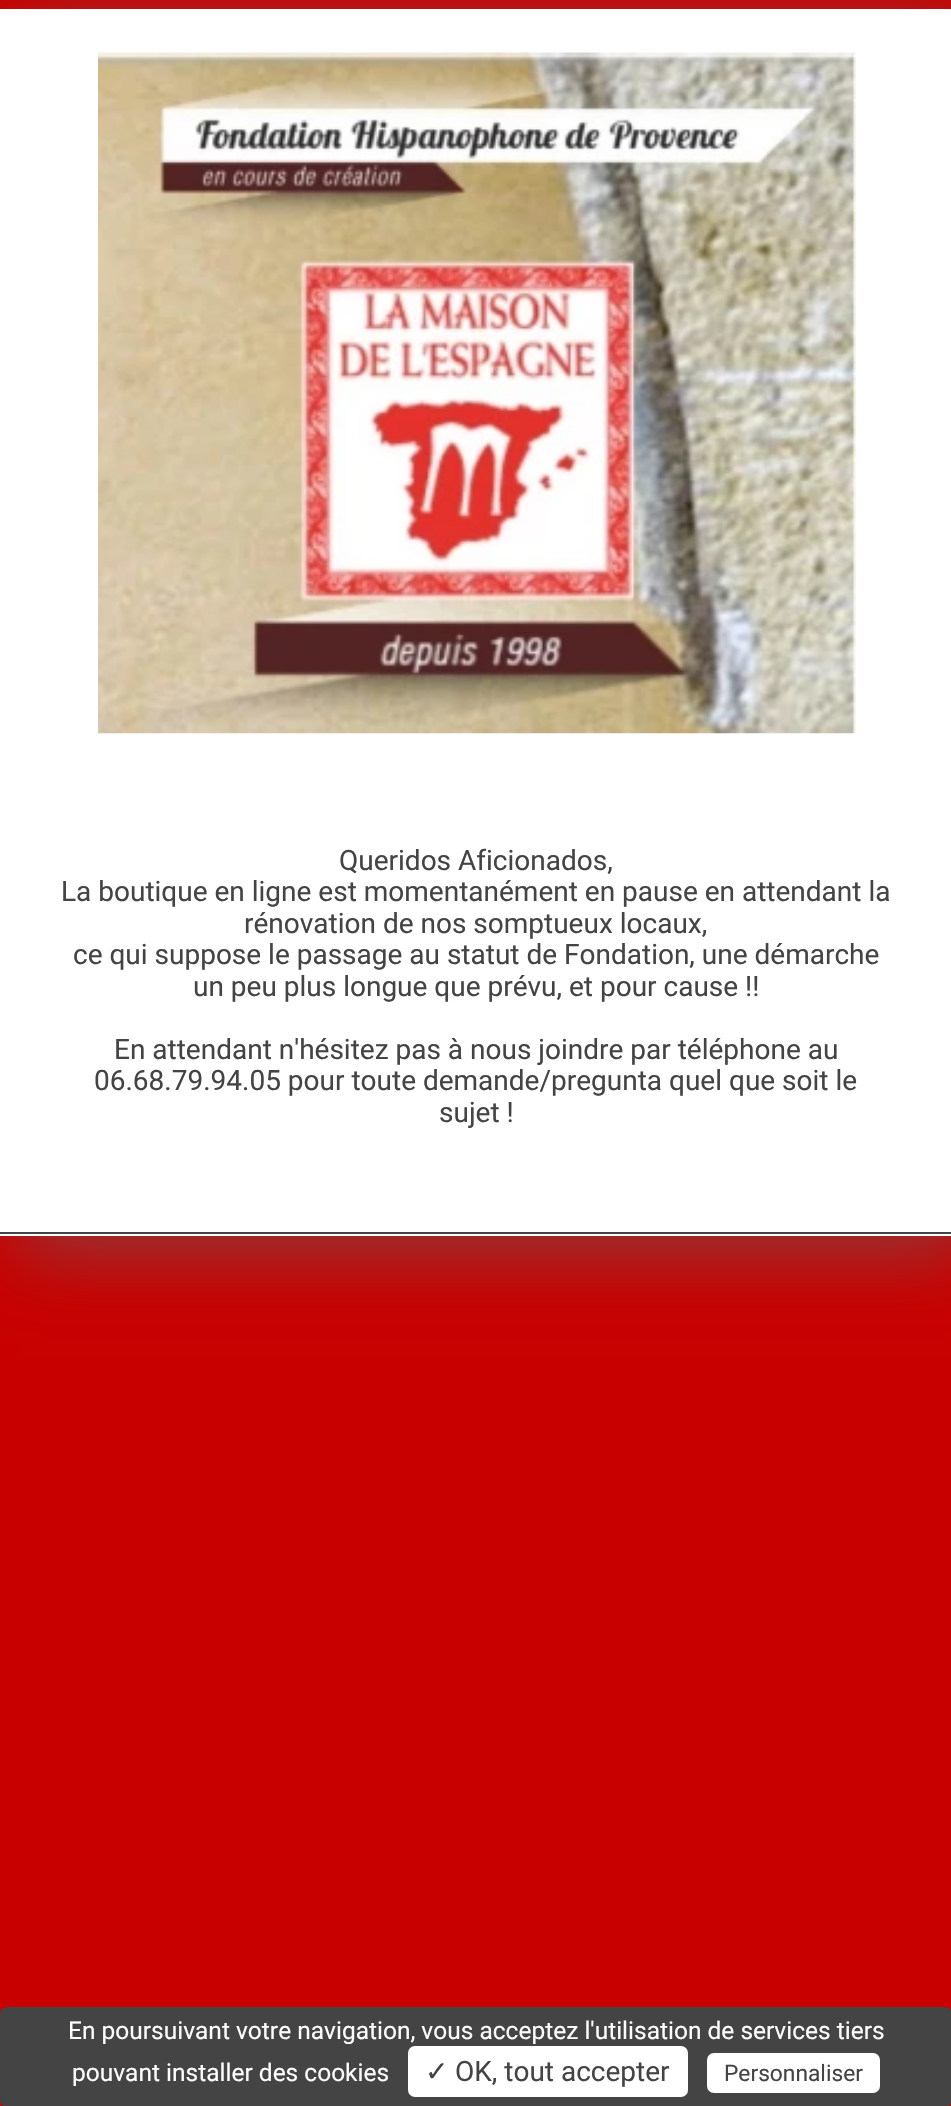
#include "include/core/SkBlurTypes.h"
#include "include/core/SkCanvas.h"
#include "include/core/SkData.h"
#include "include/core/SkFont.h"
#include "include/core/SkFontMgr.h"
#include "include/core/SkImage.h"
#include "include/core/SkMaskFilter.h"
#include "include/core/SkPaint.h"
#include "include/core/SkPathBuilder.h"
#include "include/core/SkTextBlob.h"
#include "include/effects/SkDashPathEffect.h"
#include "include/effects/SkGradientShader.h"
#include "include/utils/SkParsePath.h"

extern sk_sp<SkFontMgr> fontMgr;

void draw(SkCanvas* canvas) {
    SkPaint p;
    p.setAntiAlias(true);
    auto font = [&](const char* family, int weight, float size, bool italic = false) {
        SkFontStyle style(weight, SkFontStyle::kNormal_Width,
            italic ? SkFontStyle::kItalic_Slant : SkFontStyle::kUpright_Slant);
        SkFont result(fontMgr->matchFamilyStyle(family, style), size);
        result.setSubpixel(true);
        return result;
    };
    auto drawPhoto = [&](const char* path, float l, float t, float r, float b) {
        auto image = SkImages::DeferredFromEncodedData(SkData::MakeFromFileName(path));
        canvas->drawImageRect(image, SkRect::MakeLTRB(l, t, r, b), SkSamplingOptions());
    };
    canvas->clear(0xFFC80000);
    p.setColor(0x8C666666);
    p.setMaskFilter(SkMaskFilter::MakeBlur(kNormal_SkBlurStyle, 35));
    canvas->drawRect(SkRect::MakeLTRB(18, 26, 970, 1253), p);
    p.setMaskFilter(nullptr);
    p.setColor(0xFFFFFFFF);
    canvas->drawRect(SkRect::MakeLTRB(0, 9, 951, 1232), p);
    drawPhoto("media/1.png", 98, 52, 856, 734);
    auto font1 = font("Roboto", 400, 28);
    p.setColor(0xFF444444);
    {
        const struct { const char* s; float x, y; } items[] = {
            {"Queridos Aficionados,", 339, 870},
            {"La boutique en ligne est momentanément en pause en attendant la", 61, 901},
            {"rénovation de nos somptueux locaux,", 244, 933},
            {"ce qui suppose le passage au statut de Fondation, une démarche", 73, 964},
            {"un peu plus longue que prévu, et pour cause !!", 193, 996},
            {"En attendant n'hésitez pas à nous joindre par téléphone au", 114, 1059},
            {"06.68.79.94.05 pour toute demande/pregunta quel que soit le", 94, 1090},
            {"sujet !", 439, 1122},
        };
        for (auto [s, x, y] : items) {
            canvas->drawString(s, x, y, font1, p);
        }
    }
    p.setColor(0xFFFFFFFF);
    canvas->drawRect(SkRect::MakeLTRB(0, 1234, 951, 1236), p);
    p.setColor(0xFF444444);
    canvas->drawRect(SkRect::MakeLTRB(0, 1232, 951, 1234), p);
    canvas->drawRoundRect(SkRect::MakeLTRB(0, 2007, 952, 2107), 7, 7, p);
    auto font2 = font("Roboto", 400, 24.5f);
    p.setColor(0xFFFFFFFF);
    canvas->drawString("En poursuivant votre navigation, vous acceptez l'utilisation de services tiers", 68, 2039, font2, p);
    canvas->drawString("pouvant installer des cookies", 72, 2081, font2, p);
    canvas->drawRoundRect(SkRect::MakeLTRB(408, 2046, 688, 2097), 7, 7, p);
    auto font3 = font("DejaVu Sans", 400, 28);
    p.setColor(0xFF444444);
    canvas->drawString("✓", 425, 2081, font3, p);
    canvas->drawString("OK, tout accepter", 455, 2081, font1, p);
    p.setColor(0xFFFFFFFF);
    canvas->drawRoundRect(SkRect::MakeLTRB(707, 2053, 880, 2093), 7, 7, p);
    auto font4 = font("Roboto", 400, 22.75f);
    p.setColor(0xFF444444);
    canvas->drawString("Personnaliser", 724, 2081, font4, p);
}
